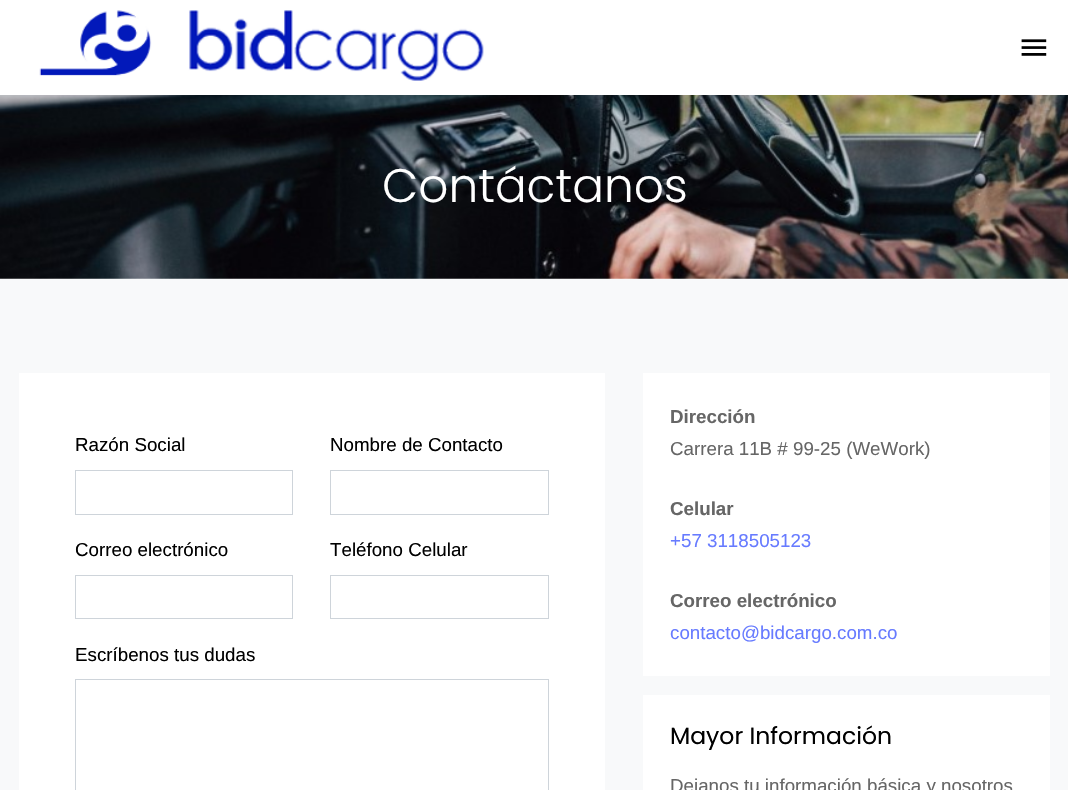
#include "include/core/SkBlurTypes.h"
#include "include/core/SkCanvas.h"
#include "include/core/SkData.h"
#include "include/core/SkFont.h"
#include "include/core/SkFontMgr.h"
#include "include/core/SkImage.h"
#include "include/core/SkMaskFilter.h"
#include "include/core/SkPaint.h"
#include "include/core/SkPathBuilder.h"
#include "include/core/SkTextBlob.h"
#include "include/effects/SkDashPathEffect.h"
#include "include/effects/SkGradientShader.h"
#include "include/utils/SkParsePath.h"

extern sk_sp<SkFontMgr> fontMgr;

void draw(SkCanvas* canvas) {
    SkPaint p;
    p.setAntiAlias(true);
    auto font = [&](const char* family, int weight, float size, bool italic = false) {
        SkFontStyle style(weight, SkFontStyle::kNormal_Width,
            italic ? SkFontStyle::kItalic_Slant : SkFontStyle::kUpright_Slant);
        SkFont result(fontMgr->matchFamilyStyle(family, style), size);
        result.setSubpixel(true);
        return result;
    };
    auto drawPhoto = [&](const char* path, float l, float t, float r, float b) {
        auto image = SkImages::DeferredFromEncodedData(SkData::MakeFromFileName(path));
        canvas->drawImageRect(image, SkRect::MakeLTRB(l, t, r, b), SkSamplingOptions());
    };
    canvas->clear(0xFFFFFFFF);
    drawPhoto("media/1.png", 39, 10, 484, 81);
    drawPhoto("media/2.png", 1021, 39, 1047, 56);
    drawPhoto("media/3.png", 0, 95, 1068, 279);
    auto font1 = font("Poppins", 300, 47);
    p.setColor(0xFFFFFFFF);
    canvas->drawString("Contáctanos", 382, 202, font1, p);
    p.setColor(0xFFF8F9FA);
    canvas->drawRect(SkRect::MakeLTRB(0, 279, 1068, 790), p);
    p.setColor(0xFFFFFFFF);
    canvas->drawRect(SkRect::MakeLTRB(19, 373, 605, 790), p);
    auto font2 = font("Liberation Sans", 400, 18.75f);
    p.setColor(0xFF000000);
    canvas->drawString("Razón Social", 75, 451, font2, p);
    p.setStyle(SkPaint::kStroke_Style);
    p.setStrokeWidth(1);
    p.setColor(0xFFCED4DA);
    canvas->drawRect(SkRect::MakeLTRB(75.5f, 470.5f, 292.5f, 514.5f), p);
    p.setStyle(SkPaint::kFill_Style);
    p.setColor(0xFF000000);
    canvas->drawString("Nombre de Contacto", 330, 451, font2, p);
    p.setStyle(SkPaint::kStroke_Style);
    p.setColor(0xFFCED4DA);
    canvas->drawRect(SkRect::MakeLTRB(330.5f, 470.5f, 548.5f, 514.5f), p);
    p.setStyle(SkPaint::kFill_Style);
    p.setColor(0xFF000000);
    canvas->drawString("Correo electrónico", 75, 556, font2, p);
    p.setStyle(SkPaint::kStroke_Style);
    p.setColor(0xFFCED4DA);
    canvas->drawRect(SkRect::MakeLTRB(75.5f, 575.5f, 292.5f, 618.5f), p);
    p.setStyle(SkPaint::kFill_Style);
    p.setColor(0xFF000000);
    canvas->drawString("Teléfono Celular", 330, 556, font2, p);
    p.setStyle(SkPaint::kStroke_Style);
    p.setColor(0xFFCED4DA);
    canvas->drawRect(SkRect::MakeLTRB(330.5f, 575.5f, 548.5f, 618.5f), p);
    p.setStyle(SkPaint::kFill_Style);
    p.setColor(0xFF000000);
    canvas->drawString("Escríbenos tus dudas", 75, 661, font2, p);
    p.setStyle(SkPaint::kStroke_Style);
    p.setColor(0xFFCED4DA);
    canvas->drawRect(SkRect::MakeLTRB(75.5f, 679.5f, 548.5f, 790.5f), p);
    p.setStyle(SkPaint::kFill_Style);
    p.setColor(0xFFFFFFFF);
    canvas->drawRect(SkRect::MakeLTRB(643, 373, 1050, 676), p);
    auto font3 = font("Liberation Sans", 700, 18.75f);
    p.setColor(0xFF666666);
    canvas->drawString("Dirección", 670, 423, font3, p);
    canvas->drawString("Carrera 11B # 99-25 (WeWork)", 670, 455, font2, p);
    canvas->drawString("Celular", 670, 515, font3, p);
    p.setColor(0xFF677BFF);
    canvas->drawString("+57 3118505123", 670, 547, font2, p);
    p.setColor(0xFF666666);
    canvas->drawString("Correo electrónico", 670, 607, font3, p);
    p.setColor(0xFF677BFF);
    canvas->drawString("contacto@bidcargo.com.co", 670, 639, font2, p);
    p.setColor(0xFFFFFFFF);
    canvas->drawRect(SkRect::MakeLTRB(643, 695, 1050, 790), p);
    auto font4 = font("Poppins", 400, 23.5f);
    p.setColor(0xFF000000);
    canvas->drawString("Mayor Información", 670, 744, font4, p);
    p.setColor(0xFF666666);
    canvas->drawString("Dejanos tu información básica y nosotros", 670, 792, font2, p);
}
